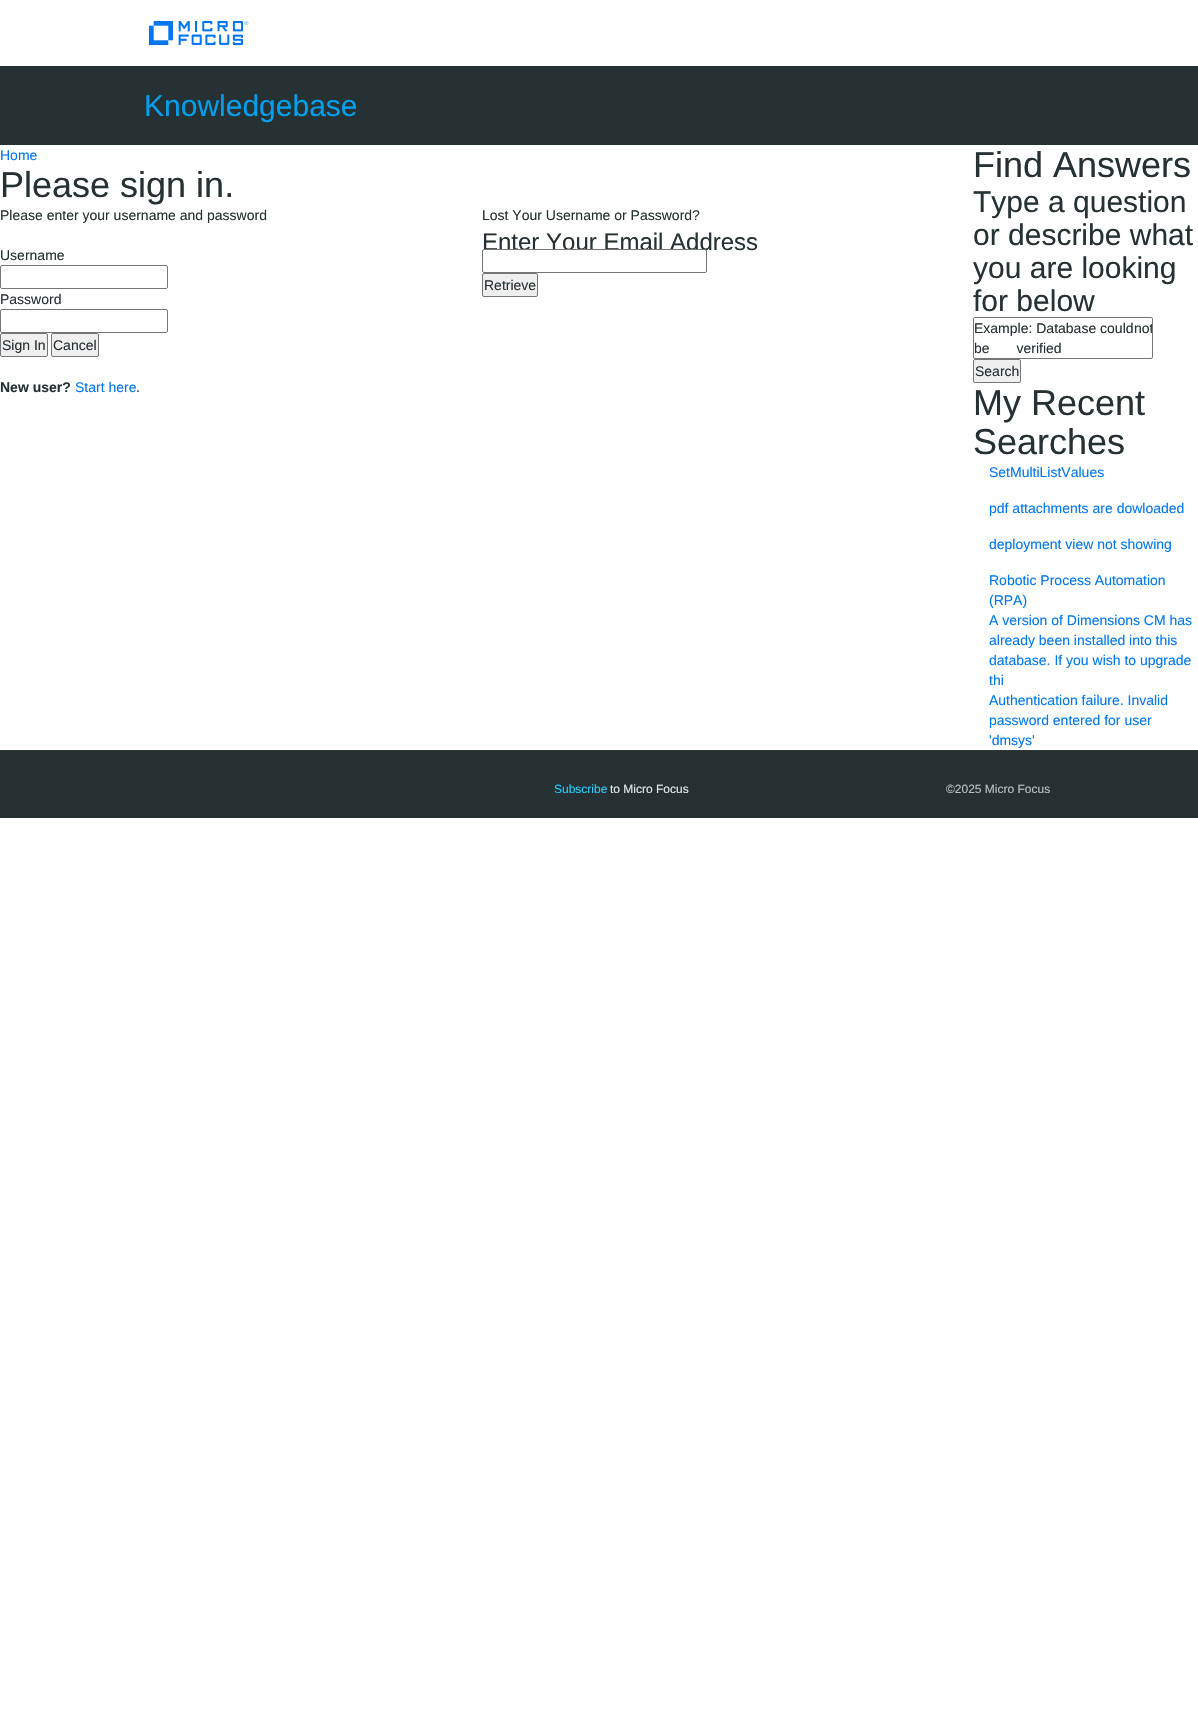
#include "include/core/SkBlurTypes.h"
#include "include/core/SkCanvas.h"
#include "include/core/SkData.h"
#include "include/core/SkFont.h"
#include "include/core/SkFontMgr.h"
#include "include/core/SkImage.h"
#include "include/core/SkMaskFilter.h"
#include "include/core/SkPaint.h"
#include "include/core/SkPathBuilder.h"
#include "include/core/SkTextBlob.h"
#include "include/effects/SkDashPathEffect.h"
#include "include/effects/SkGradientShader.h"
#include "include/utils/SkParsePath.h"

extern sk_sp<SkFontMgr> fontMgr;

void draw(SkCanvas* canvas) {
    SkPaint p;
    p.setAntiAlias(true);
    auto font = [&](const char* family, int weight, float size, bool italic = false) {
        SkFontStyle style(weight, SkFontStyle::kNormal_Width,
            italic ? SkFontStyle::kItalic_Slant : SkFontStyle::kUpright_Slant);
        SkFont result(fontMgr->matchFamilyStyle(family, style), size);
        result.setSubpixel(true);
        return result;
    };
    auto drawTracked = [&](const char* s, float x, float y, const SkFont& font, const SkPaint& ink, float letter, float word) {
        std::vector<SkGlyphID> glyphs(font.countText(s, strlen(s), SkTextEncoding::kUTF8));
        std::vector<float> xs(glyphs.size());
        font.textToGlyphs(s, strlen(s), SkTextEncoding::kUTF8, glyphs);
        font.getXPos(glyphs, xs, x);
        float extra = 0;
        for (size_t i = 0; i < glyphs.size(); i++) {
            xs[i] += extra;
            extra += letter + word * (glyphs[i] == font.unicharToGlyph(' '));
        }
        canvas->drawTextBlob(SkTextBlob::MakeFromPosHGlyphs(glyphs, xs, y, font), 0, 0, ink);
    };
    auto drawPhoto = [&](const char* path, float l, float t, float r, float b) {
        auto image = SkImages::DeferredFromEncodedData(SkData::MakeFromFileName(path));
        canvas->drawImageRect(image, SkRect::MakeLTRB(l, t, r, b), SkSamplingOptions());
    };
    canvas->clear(0xFFFFFFFF);
    drawPhoto("media/1.png", 149, 20, 249, 46);
    p.setColor(0xFF263133);
    canvas->drawRect(SkRect::MakeLTRB(0, 66, 1198, 145), p);
    auto font1 = font("Liberation Sans", 400, 30);
    p.setColor(0xFF00A0EF);
    canvas->drawString("Knowledgebase", 144, 116, font1, p);
    auto font2 = font("Liberation Sans", 400, 14);
    p.setColor(0xFF0078EF);
    canvas->drawString("Home", 0, 160, font2, p);
    auto font3 = font("Liberation Sans", 400, 36);
    p.setColor(0xFF263133);
    canvas->drawString("Please sign in.", 0, 197, font3, p);
    canvas->drawString("Please enter your username and password", 0, 220, font2, p);
    canvas->drawString("Username", 0, 260, font2, p);
    p.setStyle(SkPaint::kStroke_Style);
    p.setStrokeWidth(1);
    p.setColor(0xFF767676);
    canvas->drawRoundRect(SkRect::MakeLTRB(0.5f, 265.5f, 167.5f, 288.5f), 1.5f, 1.5f, p);
    p.setStyle(SkPaint::kFill_Style);
    p.setColor(0xFF263133);
    canvas->drawString("Password", 0, 304, font2, p);
    p.setStyle(SkPaint::kStroke_Style);
    p.setColor(0xFF767676);
    canvas->drawRoundRect(SkRect::MakeLTRB(0.5f, 309.5f, 167.5f, 332.5f), 1.5f, 1.5f, p);
    p.setStyle(SkPaint::kFill_Style);
    p.setColor(0xFFEFEFEF);
    canvas->drawRoundRect(SkRect::MakeLTRB(0.5f, 333.5f, 47.5f, 356.5f), 1.5f, 1.5f, p);
    p.setStyle(SkPaint::kStroke_Style);
    p.setColor(0xFF767676);
    canvas->drawRoundRect(SkRect::MakeLTRB(0.5f, 333.5f, 47.5f, 356.5f), 1.5f, 1.5f, p);
    p.setStyle(SkPaint::kFill_Style);
    p.setColor(0xFF263133);
    canvas->drawString("Sign In", 2, 350, font2, p);
    p.setColor(0xFFEFEFEF);
    canvas->drawRoundRect(SkRect::MakeLTRB(51.5f, 333.5f, 98.5f, 356.5f), 1.5f, 1.5f, p);
    p.setStyle(SkPaint::kStroke_Style);
    p.setColor(0xFF767676);
    canvas->drawRoundRect(SkRect::MakeLTRB(51.5f, 333.5f, 98.5f, 356.5f), 1.5f, 1.5f, p);
    p.setStyle(SkPaint::kFill_Style);
    p.setColor(0xFF263133);
    canvas->drawString("Cancel", 53, 350, font2, p);
    auto font4 = font("Liberation Sans", 700, 14);
    canvas->drawString("New user?", 0, 392, font4, p);
    p.setColor(0xFF0078EF);
    canvas->drawString("Start here", 75, 392, font2, p);
    p.setColor(0xFF263133);
    canvas->drawString(".", 136, 392, font2, p);
    canvas->drawString("Lost Your Username or Password?", 482, 220, font2, p);
    auto font5 = font("Liberation Sans", 400, 24);
    canvas->drawString("Enter Your Email Address", 482, 250, font5, p);
    p.setColor(0xFFFFFFFF);
    canvas->drawRoundRect(SkRect::MakeLTRB(482.5f, 249.5f, 706.5f, 272.5f), 1.5f, 1.5f, p);
    p.setStyle(SkPaint::kStroke_Style);
    p.setColor(0xFF767676);
    canvas->drawRoundRect(SkRect::MakeLTRB(482.5f, 249.5f, 706.5f, 272.5f), 1.5f, 1.5f, p);
    p.setStyle(SkPaint::kFill_Style);
    p.setColor(0xFFEFEFEF);
    canvas->drawRoundRect(SkRect::MakeLTRB(482.5f, 273.5f, 537.5f, 296.5f), 1.5f, 1.5f, p);
    p.setStyle(SkPaint::kStroke_Style);
    p.setColor(0xFF767676);
    canvas->drawRoundRect(SkRect::MakeLTRB(482.5f, 273.5f, 537.5f, 296.5f), 1.5f, 1.5f, p);
    p.setStyle(SkPaint::kFill_Style);
    p.setColor(0xFF263133);
    canvas->drawString("Retrieve", 484, 290, font2, p);
    canvas->drawString("Find Answers", 973, 177, font3, p);
    {
        const struct { const char* s; float x, y; } items[] = {
            {"Type a question", 973, 212},
            {"or describe what", 973, 245},
            {"you are looking", 973, 278},
            {"for below", 973, 311},
        };
        for (auto [s, x, y] : items) {
            canvas->drawString(s, x, y, font1, p);
        }
    }
    p.setStyle(SkPaint::kStroke_Style);
    p.setColor(0xFF767676);
    canvas->drawRoundRect(SkRect::MakeLTRB(973.5f, 317.5f, 1152.5f, 358.5f), 1.5f, 1.5f, p);
    p.setStyle(SkPaint::kFill_Style);
    p.setColor(0xFF263133);
    canvas->drawString("Example: Database could", 974, 333, font2, p);
    canvas->save();
    canvas->clipRect(SkRect::MakeLTRB(974, 318, 1152, 358));
    canvas->drawString("not", 1134, 333, font2, p);
    canvas->restore();
    drawTracked("be verified", 974, 353, font2, p, 0, 23);
    p.setColor(0xFFEFEFEF);
    canvas->drawRoundRect(SkRect::MakeLTRB(973.5f, 359.5f, 1020.5f, 382.5f), 1.5f, 1.5f, p);
    p.setStyle(SkPaint::kStroke_Style);
    p.setColor(0xFF767676);
    canvas->drawRoundRect(SkRect::MakeLTRB(973.5f, 359.5f, 1020.5f, 382.5f), 1.5f, 1.5f, p);
    p.setStyle(SkPaint::kFill_Style);
    p.setColor(0xFF263133);
    canvas->drawString("Search", 975, 376, font2, p);
    canvas->drawString("My Recent", 973, 415, font3, p);
    canvas->drawString("Searches", 973, 454, font3, p);
    p.setColor(0xFF0078EF);
    {
        const struct { const char* s; float x, y; } items[] = {
            {"SetMultiListValues", 989, 477},
            {"pdf attachments are dowloaded", 989, 513},
            {"deployment view not showing", 989, 549},
            {"Robotic Process Automation", 989, 585},
            {"(RPA)", 989, 605},
            {"A version of Dimensions CM has", 989, 625},
            {"already been installed into this", 989, 645},
            {"database. If you wish to upgrade", 989, 665},
            {"thi", 989, 685},
            {"Authentication failure. Invalid", 989, 705},
            {"password entered for user", 989, 725},
            {"'dmsys'", 989, 745},
        };
        for (auto [s, x, y] : items) {
            canvas->drawString(s, x, y, font2, p);
        }
    }
    p.setColor(0xFF323939);
    canvas->drawRect(SkRect::MakeLTRB(0, 750, 1198, 751), p);
    p.setColor(0xFF253032);
    canvas->drawRect(SkRect::MakeLTRB(0, 751, 1198, 818), p);
    auto font6 = font("Liberation Sans", 400, 12);
    p.setColor(0xFF29CEFF);
    canvas->drawString("Subscribe", 554, 793, font6, p);
    p.setColor(0xFFE3E7EA);
    canvas->drawString("to Micro Focus", 610, 793, font6, p);
    p.setColor(0xFFB6C1C2);
    canvas->drawString("©2025 Micro Focus", 946, 793, font6, p);
}
